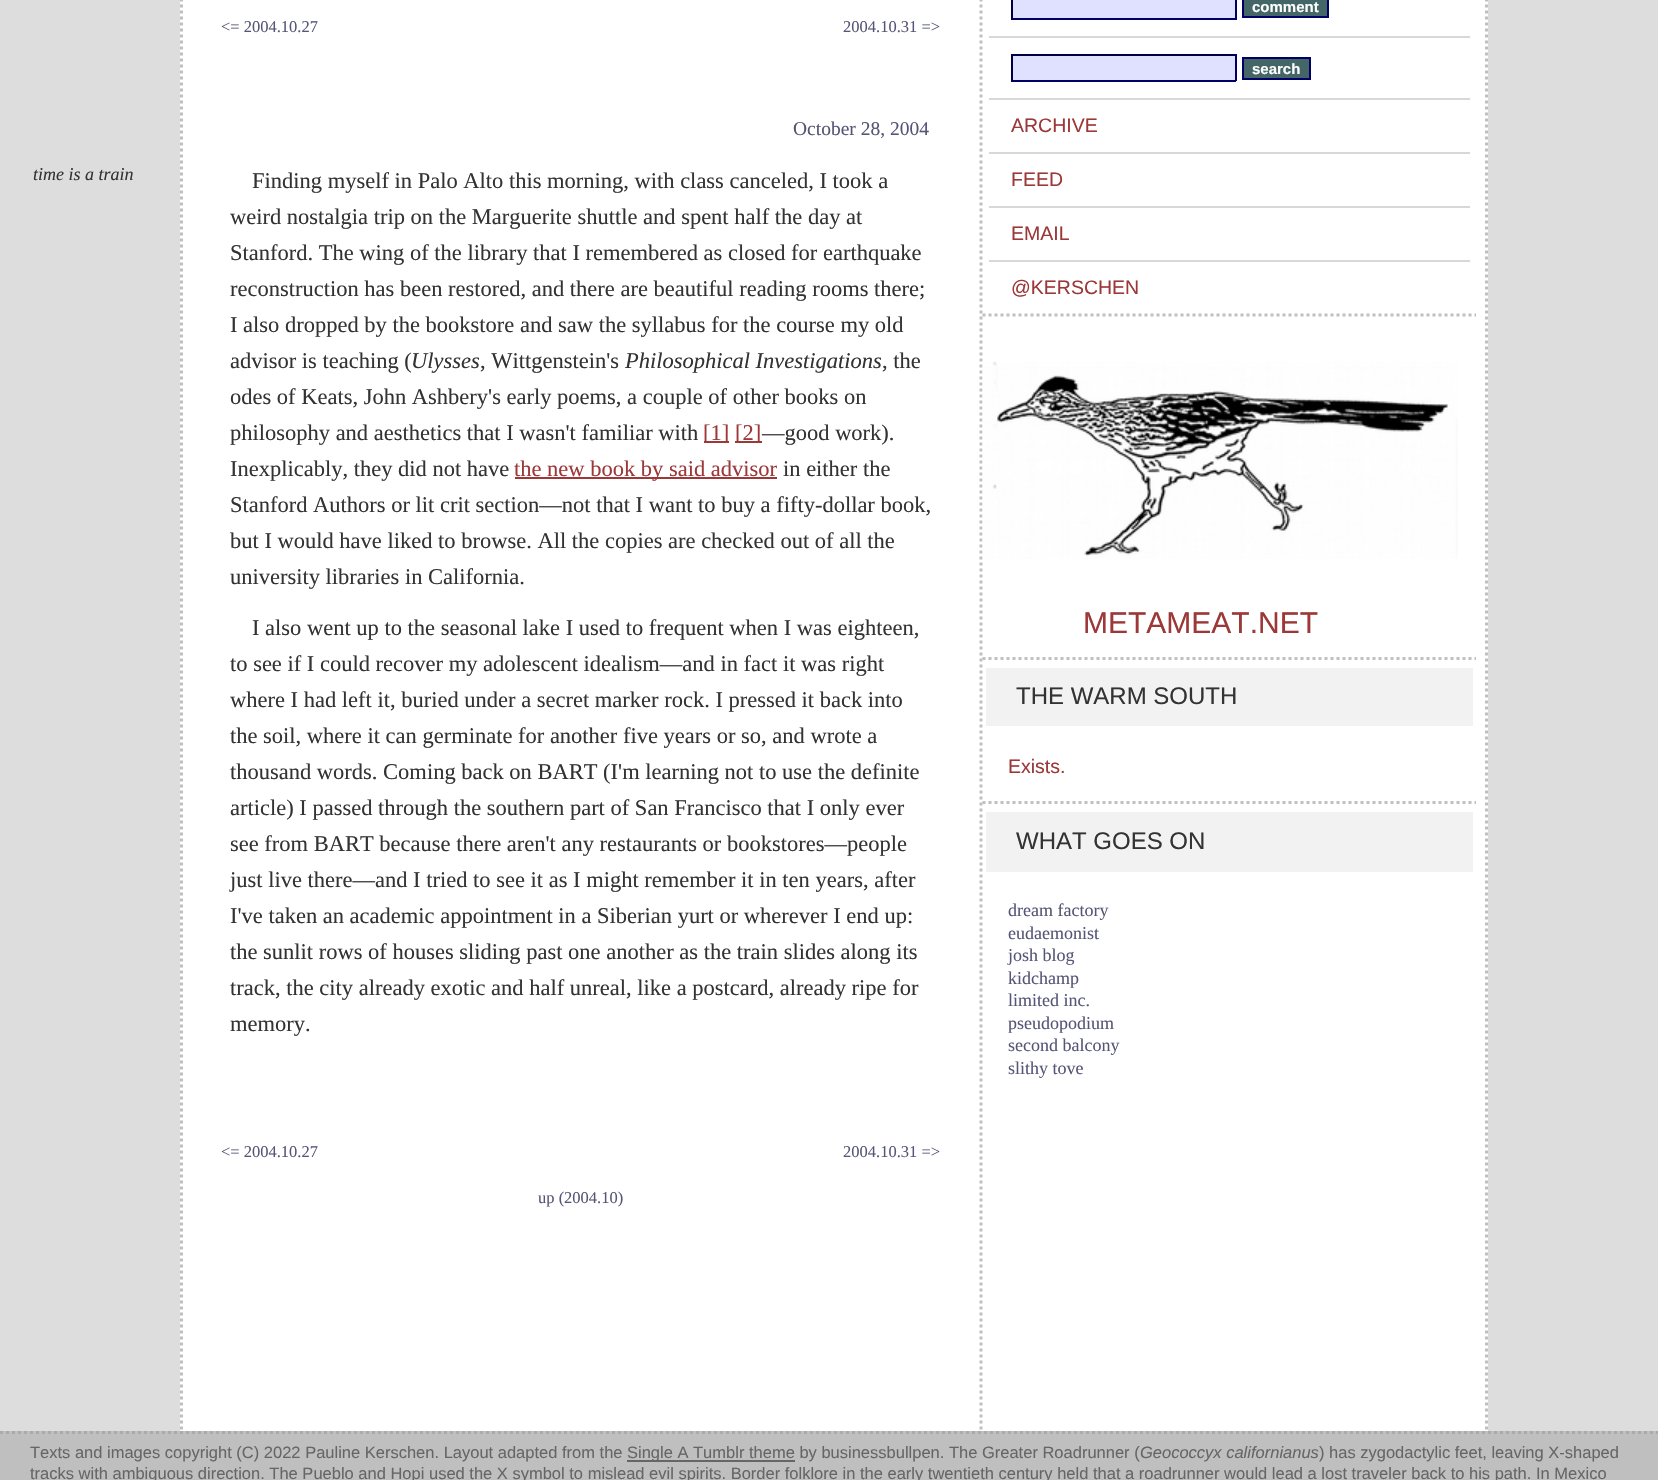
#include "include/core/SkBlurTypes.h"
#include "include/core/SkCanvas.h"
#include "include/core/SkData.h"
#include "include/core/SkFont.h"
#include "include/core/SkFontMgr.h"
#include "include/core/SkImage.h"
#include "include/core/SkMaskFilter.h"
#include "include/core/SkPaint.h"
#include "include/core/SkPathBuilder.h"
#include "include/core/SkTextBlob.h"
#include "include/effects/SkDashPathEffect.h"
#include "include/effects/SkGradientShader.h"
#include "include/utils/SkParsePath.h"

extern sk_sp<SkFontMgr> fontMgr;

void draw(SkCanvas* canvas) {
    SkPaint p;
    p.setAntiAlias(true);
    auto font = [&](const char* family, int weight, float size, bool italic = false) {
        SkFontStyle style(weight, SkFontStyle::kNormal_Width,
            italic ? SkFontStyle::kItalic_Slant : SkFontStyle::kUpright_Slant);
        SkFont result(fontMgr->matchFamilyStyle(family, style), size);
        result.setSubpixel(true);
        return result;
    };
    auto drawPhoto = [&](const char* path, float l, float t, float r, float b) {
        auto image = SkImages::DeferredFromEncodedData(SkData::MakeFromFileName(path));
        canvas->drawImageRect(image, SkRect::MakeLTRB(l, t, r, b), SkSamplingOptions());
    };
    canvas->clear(0xFFDDDDDD);
    p.setColor(0xFFFFFFFF);
    canvas->drawRect(SkRect::MakeLTRB(180, 0, 1488, 1431), p);
    p.setStyle(SkPaint::kStroke_Style);
    p.setStrokeWidth(3);
    p.setColor(0xFFBFBFBF);
    p.setPathEffect(SkDashPathEffect::Make({{3, 3}}, 0));
    canvas->drawPath(SkPathBuilder().moveTo(1486.5f, -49.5f).lineTo(1486.5f, 1431).detach(), p);
    p.setPathEffect(nullptr);
    p.setPathEffect(SkDashPathEffect::Make({{3, 3}}, 0));
    canvas->drawPath(SkPathBuilder().moveTo(181.5f, -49.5f).lineTo(181.5f, 1431).detach(), p);
    p.setPathEffect(nullptr);
    p.setPathEffect(SkDashPathEffect::Make({{3, 3}}, 0));
    canvas->drawPath(SkPathBuilder().moveTo(981, -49.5f).lineTo(981, 1431).detach(), p);
    p.setPathEffect(nullptr);
    auto font1 = font("Liberation Serif", 400, 16.5f);
    p.setStyle(SkPaint::kFill_Style);
    p.setColor(0xFF555577);
    canvas->drawString("<= 2004.10.27", 221, 32, font1, p);
    canvas->drawString("2004.10.31 =>", 843, 32, font1, p);
    auto font2 = font("Liberation Serif", 400, 19.5f);
    canvas->drawString("October 28, 2004", 793, 135, font2, p);
    auto font3 = font("Liberation Serif", 400, 18, true);
    p.setColor(0xFF333333);
    canvas->drawString("time is a train", 33, 180, font3, p);
    auto font4 = font("Liberation Serif", 400, 22.5f);
    {
        const struct { const char* s; float x, y; } items[] = {
            {"Finding myself in Palo Alto this morning, with class canceled, I took a", 252, 188},
            {"weird nostalgia trip on the Marguerite shuttle and spent half the day at", 230, 224},
            {"Stanford. The wing of the library that I remembered as closed for earthquake", 230, 260},
            {"reconstruction has been restored, and there are beautiful reading rooms there;", 230, 296},
            {"I also dropped by the bookstore and saw the syllabus for the course my old", 230, 332},
            {"advisor is teaching (", 230, 368},
        };
        for (auto [s, x, y] : items) {
            canvas->drawString(s, x, y, font4, p);
        }
    }
    auto font5 = font("Liberation Serif", 400, 22.5f, true);
    canvas->drawString("Ulysses", 411, 368, font5, p);
    canvas->drawString(", Wittgenstein's", 480, 368, font4, p);
    canvas->drawString("Philosophical Investigations", 625, 368, font5, p);
    {
        const struct { const char* s; float x, y; } items[] = {
            {", the", 882, 368},
            {"odes of Keats, John Ashbery's early poems, a couple of other books on", 230, 404},
            {"philosophy and aesthetics that I wasn't familiar with", 230, 440},
        };
        for (auto [s, x, y] : items) {
            canvas->drawString(s, x, y, font4, p);
        }
    }
    p.setColor(0xFF9C3838);
    canvas->drawRect(SkRect::MakeLTRB(704, 441, 729, 443), p);
    canvas->drawString("[1]", 703, 440, font4, p);
    canvas->drawRect(SkRect::MakeLTRB(735, 441, 762, 443), p);
    canvas->drawString("[2]", 735, 440, font4, p);
    p.setColor(0xFF333333);
    canvas->drawString("—good work).", 762, 440, font4, p);
    canvas->drawString("Inexplicably, they did not have", 230, 476, font4, p);
    p.setColor(0xFF9C3838);
    canvas->drawRect(SkRect::MakeLTRB(515, 477, 777, 479), p);
    canvas->drawString("the new book by said advisor", 514, 476, font4, p);
    p.setColor(0xFF333333);
    {
        const struct { const char* s; float x, y; } items[] = {
            {"in either the", 783, 476},
            {"Stanford Authors or lit crit section—not that I want to buy a fifty-dollar book,", 230, 512},
            {"but I would have liked to browse. All the copies are checked out of all the", 230, 548},
            {"university libraries in California.", 230, 584},
            {"I also went up to the seasonal lake I used to frequent when I was eighteen,", 252, 635},
            {"to see if I could recover my adolescent idealism—and in fact it was right", 230, 671},
            {"where I had left it, buried under a secret marker rock. I pressed it back into", 230, 707},
            {"the soil, where it can germinate for another five years or so, and wrote a", 230, 743},
            {"thousand words. Coming back on BART (I'm learning not to use the definite", 230, 779},
            {"article) I passed through the southern part of San Francisco that I only ever", 230, 815},
            {"see from BART because there aren't any restaurants or bookstores—people", 230, 851},
            {"just live there—and I tried to see it as I might remember it in ten years, after", 230, 887},
            {"I've taken an academic appointment in a Siberian yurt or wherever I end up:", 230, 923},
            {"the sunlit rows of houses sliding past one another as the train slides along its", 230, 959},
            {"track, the city already exotic and half unreal, like a postcard, already ripe for", 230, 995},
            {"memory.", 230, 1031},
        };
        for (auto [s, x, y] : items) {
            canvas->drawString(s, x, y, font4, p);
        }
    }
    p.setColor(0xFF555577);
    {
        const struct { const char* s; float x, y; } items[] = {
            {"<= 2004.10.27", 221, 1157},
            {"2004.10.31 =>", 843, 1157},
            {"up (2004.10)", 538, 1203},
        };
        for (auto [s, x, y] : items) {
            canvas->drawString(s, x, y, font1, p);
        }
    }
    {
        const struct { float l, t, r, b; SkColor color; } items[] = {
            {1013, 0, 1235, 18, 0xFFE0E0FF},
            {1235, 0, 1237, 20, 0xFF000066},
            {1011, 18, 1236, 20, 0xFF000066},
            {1011, 0, 1013, 20, 0xFF000044},
        };
        for (auto [l, t, r, b, color] : items) {
            p.setColor(color);
            canvas->drawRect(SkRect::MakeLTRB(l, t, r, b), p);
        }
    }
    p.setColor(0xFF446666);
    canvas->drawRect(SkRect::MakeLTRB(1243, -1, 1328, 17), p);
    p.setStyle(SkPaint::kStroke_Style);
    p.setStrokeWidth(2);
    p.setColor(0xFF000066);
    canvas->drawRect(SkRect::MakeLTRB(1243, -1, 1328, 17), p);
    auto font6 = font("Liberation Sans", 700, 15);
    p.setStyle(SkPaint::kFill_Style);
    p.setColor(0xFFFFFFFF);
    canvas->drawString("comment", 1252, 12, font6, p);
    {
        const struct { float l, t, r, b; SkColor color; } items[] = {
            {989, 36, 1470, 38, 0xFFD8D8D8},
            {1013, 56, 1235, 80, 0xFFE0E0FF},
            {1011, 54, 1236, 56, 0xFF000044},
            {1235, 54, 1237, 81, 0xFF000066},
            {1011, 80, 1236, 82, 0xFF000066},
            {1011, 54, 1013, 81, 0xFF000044},
        };
        for (auto [l, t, r, b, color] : items) {
            p.setColor(color);
            canvas->drawRect(SkRect::MakeLTRB(l, t, r, b), p);
        }
    }
    p.setColor(0xFF446666);
    canvas->drawRect(SkRect::MakeLTRB(1243, 58, 1310, 79), p);
    p.setStyle(SkPaint::kStroke_Style);
    p.setColor(0xFF000066);
    canvas->drawRect(SkRect::MakeLTRB(1243, 58, 1310, 79), p);
    p.setStyle(SkPaint::kFill_Style);
    p.setColor(0xFFFFFFFF);
    canvas->drawString("search", 1252, 74, font6, p);
    p.setColor(0xFFD8D8D8);
    canvas->drawRect(SkRect::MakeLTRB(989, 98, 1470, 100), p);
    auto font7 = font("Liberation Sans", 400, 19.5f);
    p.setColor(0xFF9C3838);
    canvas->drawString("ARCHIVE", 1011, 132, font7, p);
    p.setColor(0xFFD8D8D8);
    canvas->drawRect(SkRect::MakeLTRB(989, 152, 1470, 154), p);
    p.setColor(0xFF9C3838);
    canvas->drawString("FEED", 1011, 186, font7, p);
    p.setColor(0xFFD8D8D8);
    canvas->drawRect(SkRect::MakeLTRB(989, 206, 1470, 208), p);
    p.setColor(0xFF9C3838);
    canvas->drawString("EMAIL", 1011, 240, font7, p);
    p.setColor(0xFFD8D8D8);
    canvas->drawRect(SkRect::MakeLTRB(989, 260, 1470, 262), p);
    p.setColor(0xFF9C3838);
    canvas->drawString("@KERSCHEN", 1011, 294, font7, p);
    p.setStyle(SkPaint::kStroke_Style);
    p.setStrokeWidth(3);
    p.setColor(0xFFBFBFBF);
    p.setPathEffect(SkDashPathEffect::Make({{3, 3}}, 0));
    canvas->drawPath(SkPathBuilder().moveTo(982.5f, 315).lineTo(1476, 315).detach(), p);
    p.setPathEffect(nullptr);
    drawPhoto("media/1.png", 982, 361, 1458, 559);
    auto font8 = font("Liberation Sans", 400, 30);
    p.setStyle(SkPaint::kFill_Style);
    p.setColor(0xFF9C3838);
    canvas->drawString("METAMEAT.NET", 1083, 633, font8, p);
    p.setStyle(SkPaint::kStroke_Style);
    p.setColor(0xFFBFBFBF);
    p.setPathEffect(SkDashPathEffect::Make({{3, 3}}, 0));
    canvas->drawPath(SkPathBuilder().moveTo(982.5f, 658.5f).lineTo(1476, 658.5f).detach(), p);
    p.setPathEffect(nullptr);
    p.setStyle(SkPaint::kFill_Style);
    p.setColor(0xFFF2F2F3);
    canvas->drawRect(SkRect::MakeLTRB(986, 668, 1473, 726), p);
    auto font9 = font("Liberation Sans", 400, 24);
    p.setColor(0xFF333333);
    canvas->drawString("THE WARM SOUTH", 1016, 704, font9, p);
    p.setColor(0xFF9C3838);
    canvas->drawString("Exists.", 1008, 773, font7, p);
    p.setStyle(SkPaint::kStroke_Style);
    p.setColor(0xFFBFBFBF);
    p.setPathEffect(SkDashPathEffect::Make({{3, 3}}, 0));
    canvas->drawPath(SkPathBuilder().moveTo(982.5f, 802.5f).lineTo(1476, 802.5f).detach(), p);
    p.setPathEffect(nullptr);
    p.setStyle(SkPaint::kFill_Style);
    p.setColor(0xFFF2F2F3);
    canvas->drawRect(SkRect::MakeLTRB(986, 812, 1473, 872), p);
    p.setColor(0xFF333333);
    canvas->drawString("WHAT GOES ON", 1016, 849, font9, p);
    auto font10 = font("Liberation Serif", 400, 18);
    p.setColor(0xFF555577);
    {
        const struct { const char* s; float x, y; } items[] = {
            {"dream factory", 1008, 916},
            {"eudaemonist", 1008, 939},
            {"josh blog", 1008, 961},
            {"kidchamp", 1008, 984},
            {"limited inc.", 1008, 1006},
            {"pseudopodium", 1008, 1029},
            {"second balcony", 1008, 1051},
            {"slithy tove", 1008, 1074},
        };
        for (auto [s, x, y] : items) {
            canvas->drawString(s, x, y, font10, p);
        }
    }
    p.setColor(0xFFBFBFBF);
    canvas->drawRect(SkRect::MakeLTRB(0, 1431, 1658, 1480), p);
    p.setStyle(SkPaint::kStroke_Style);
    p.setColor(0xFFAAAAAA);
    p.setPathEffect(SkDashPathEffect::Make({{3, 3}}, 0));
    canvas->drawPath(SkPathBuilder().moveTo(0, 1432.5f).lineTo(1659, 1432.5f).detach(), p);
    p.setPathEffect(nullptr);
    auto font11 = font("Liberation Sans", 400, 16.5f);
    p.setStyle(SkPaint::kFill_Style);
    p.setColor(0xFF666666);
    canvas->drawString("Texts and images copyright (C) 2022 Pauline Kerschen. Layout adapted from the", 30, 1458, font11, p);
    canvas->drawRect(SkRect::MakeLTRB(627, 1460, 795, 1462), p);
    canvas->drawString("Single A Tumblr theme by businessbullpen. The Greater Roadrunner (", 627, 1458, font11, p);
    auto font12 = font("Liberation Sans", 400, 16.5f, true);
    canvas->drawString("Geococcyx californianus", 1140, 1458, font12, p);
    canvas->drawString(") has zygodactylic feet, leaving X-shaped", 1319, 1458, font11, p);
    canvas->drawString("tracks with ambiguous direction. The Pueblo and Hopi used the X symbol to mislead evil spirits. Border folklore in the early twentieth century held that a roadrunner would lead a lost traveler back to his path. In Mexico", 30, 1479, font11, p);
}
